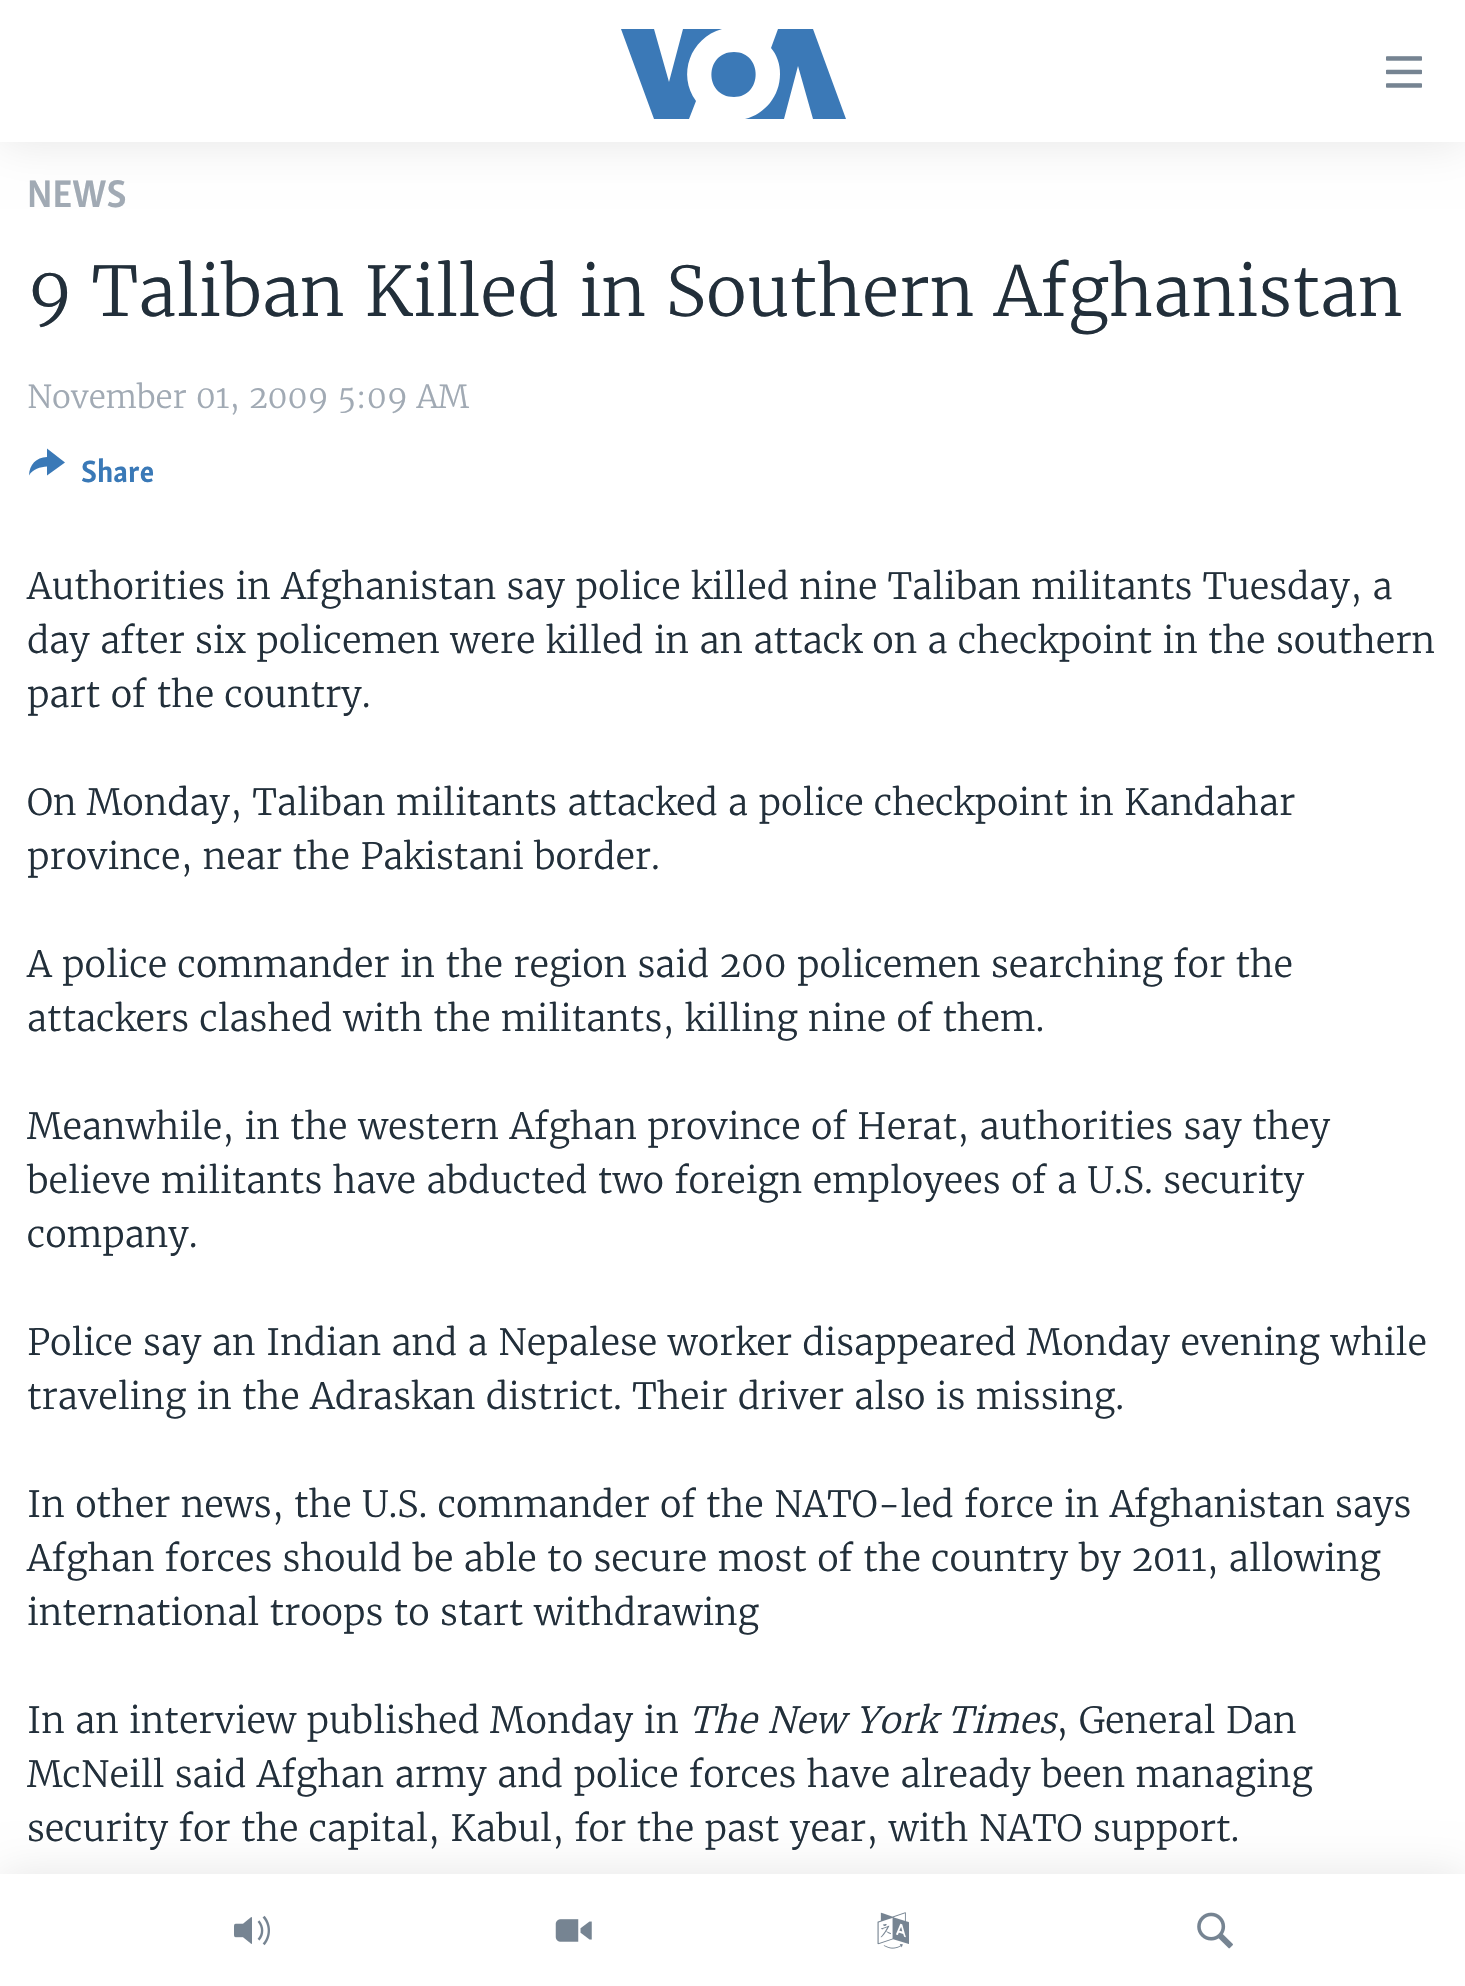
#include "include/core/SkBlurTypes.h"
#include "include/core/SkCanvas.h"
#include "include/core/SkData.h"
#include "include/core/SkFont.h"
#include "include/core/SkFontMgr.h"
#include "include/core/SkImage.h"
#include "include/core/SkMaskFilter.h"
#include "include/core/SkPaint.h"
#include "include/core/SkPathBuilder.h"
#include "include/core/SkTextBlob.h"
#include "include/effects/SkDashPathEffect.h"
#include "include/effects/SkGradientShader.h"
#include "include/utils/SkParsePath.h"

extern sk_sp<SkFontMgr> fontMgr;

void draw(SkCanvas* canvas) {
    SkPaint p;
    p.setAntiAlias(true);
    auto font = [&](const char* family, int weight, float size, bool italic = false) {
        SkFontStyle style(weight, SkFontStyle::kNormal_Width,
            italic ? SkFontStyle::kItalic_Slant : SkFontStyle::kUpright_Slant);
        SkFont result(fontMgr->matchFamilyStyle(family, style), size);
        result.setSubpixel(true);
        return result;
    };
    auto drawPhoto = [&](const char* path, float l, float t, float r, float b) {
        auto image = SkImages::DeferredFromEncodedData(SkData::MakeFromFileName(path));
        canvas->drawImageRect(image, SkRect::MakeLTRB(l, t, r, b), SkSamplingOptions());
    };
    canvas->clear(0xFFFFFFFF);
    p.setColor(0x1A000000);
    p.setMaskFilter(SkMaskFilter::MakeBlur(kNormal_SkBlurStyle, 22.5f));
    canvas->drawRect(SkRect::MakeLTRB(0, 0, 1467, 142), p);
    p.setMaskFilter(nullptr);
    p.setColor(0xFFFFFFFF);
    canvas->drawRect(SkRect::MakeLTRB(0, 0, 1465, 142), p);
    p.setColor(0xFF3B79B7);
    canvas->drawPath(SkPathBuilder().moveTo(696, 101).lineTo(689, 119).lineTo(654, 119).lineTo(621, 29).lineTo(654, 29).lineTo(669, 82).lineTo(683, 29).lineTo(722, 29).cubicTo(690, 38, 677, 75, 696, 101).close().moveTo(734, 52).cubicTo(704, 52, 704, 97, 734, 97).cubicTo(763, 97, 763, 52, 734, 52).close().moveTo(780, 74).cubicTo(780, 96, 765, 114, 745, 119).lineTo(784, 119).lineTo(798, 66).lineTo(813, 119).lineTo(846, 119).lineTo(813, 29).lineTo(778, 29).lineTo(771, 48).cubicTo(777, 55, 780, 64, 780, 74).close().detach(), p);
    drawPhoto("media/1.png", 1386, 56, 1422, 88);
    p.setColor(0x1A000000);
    p.setMaskFilter(SkMaskFilter::MakeBlur(kNormal_SkBlurStyle, 22.5f));
    canvas->drawRect(SkRect::MakeLTRB(0, 1874, 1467, 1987), p);
    p.setMaskFilter(nullptr);
    p.setColor(0xFFFFFFFF);
    canvas->drawRect(SkRect::MakeLTRB(0, 1874, 1465, 1986), p);
    drawPhoto("media/2.png", 234, 1915, 270, 1946);
    drawPhoto("media/3.png", 555, 1919, 592, 1942);
    drawPhoto("media/4.png", 877, 1912, 909, 1949);
    drawPhoto("media/5.png", 1197, 1912, 1233, 1949);
    auto font1 = font("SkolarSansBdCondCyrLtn", 700, 39.5f);
    p.setColor(0xFFA1AAB4);
    canvas->drawString("NEWS", 27, 207, font1, p);
    auto font2 = font("Merriweather", 300, 68.4f);
    p.setColor(0xFF222F3A);
    canvas->drawString("9 Taliban Killed in Southern Afghanistan", 27, 316, font2, p);
    auto font3 = font("Merriweather", 300, 31.5f);
    p.setColor(0xFFA1AAB4);
    canvas->drawString("November 01, 2009 5:09 AM", 27, 408, font3, p);
    p.setColor(0xFF3A79B7);
    canvas->drawPath(SkPathBuilder().moveTo(29, 475.5f).cubicTo(29.5f, 464.5f, 36, 457.5f, 47, 457).lineTo(47, 448.5f).lineTo(65, 462.5f).lineTo(47, 475.5f).lineTo(47, 466.5f).cubicTo(40.5f, 467, 32.5f, 469, 29, 475.5f).close().detach(), p);
    auto font4 = font("SkolarSansBdCondCyrLtn", 700, 31.5f);
    canvas->drawString("Share", 81, 482, font4, p);
    auto font5 = font("Merriweather", 300, 36);
    p.setColor(0xFF222F3A);
    {
        const struct { const char* s; float x, y; } items[] = {
            {"Authorities in Afghanistan say police killed nine Taliban militants Tuesday, a", 27, 599},
            {"day after six policemen were killed in an attack on a checkpoint in the southern", 27, 653},
            {"part of the country.", 27, 707},
            {"On Monday, Taliban militants attacked a police checkpoint in Kandahar", 27, 815},
            {"province, near the Pakistani border.", 27, 869},
            {"A police commander in the region said 200 policemen searching for the", 27, 977},
            {"attackers clashed with the militants, killing nine of them.", 27, 1031},
            {"Meanwhile, in the western Afghan province of Herat, authorities say they", 27, 1139},
            {"believe militants have abducted two foreign employees of a U.S. security", 27, 1193},
            {"company.", 27, 1247},
            {"Police say an Indian and a Nepalese worker disappeared Monday evening while", 27, 1355},
            {"traveling in the Adraskan district. Their driver also is missing.", 27, 1409},
            {"In other news, the U.S. commander of the NATO-led force in Afghanistan says", 27, 1517},
            {"Afghan forces should be able to secure most of the country by 2011, allowing", 27, 1571},
            {"international troops to start withdrawing", 27, 1625},
            {"In an interview published Monday in", 27, 1733},
        };
        for (auto [s, x, y] : items) {
            canvas->drawString(s, x, y, font5, p);
        }
    }
    auto font6 = font("Merriweather", 300, 36, true);
    canvas->drawString("The New York Times", 689, 1733, font6, p);
    {
        const struct { const char* s; float x, y; } items[] = {
            {", General Dan", 1056, 1733},
            {"McNeill said Afghan army and police forces have already been managing", 27, 1787},
            {"security for the capital, Kabul, for the past year, with NATO support.", 27, 1841},
        };
        for (auto [s, x, y] : items) {
            canvas->drawString(s, x, y, font5, p);
        }
    }
}
